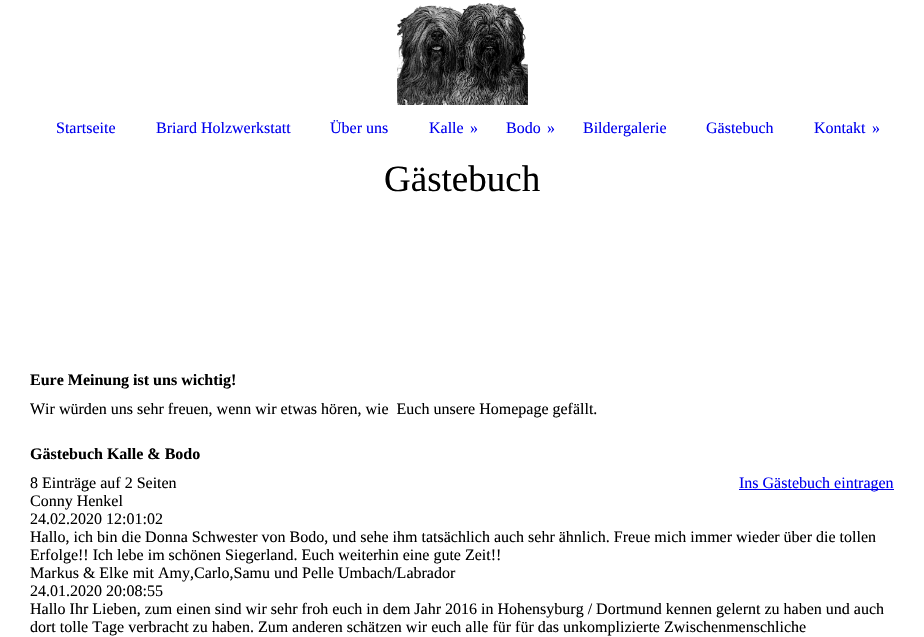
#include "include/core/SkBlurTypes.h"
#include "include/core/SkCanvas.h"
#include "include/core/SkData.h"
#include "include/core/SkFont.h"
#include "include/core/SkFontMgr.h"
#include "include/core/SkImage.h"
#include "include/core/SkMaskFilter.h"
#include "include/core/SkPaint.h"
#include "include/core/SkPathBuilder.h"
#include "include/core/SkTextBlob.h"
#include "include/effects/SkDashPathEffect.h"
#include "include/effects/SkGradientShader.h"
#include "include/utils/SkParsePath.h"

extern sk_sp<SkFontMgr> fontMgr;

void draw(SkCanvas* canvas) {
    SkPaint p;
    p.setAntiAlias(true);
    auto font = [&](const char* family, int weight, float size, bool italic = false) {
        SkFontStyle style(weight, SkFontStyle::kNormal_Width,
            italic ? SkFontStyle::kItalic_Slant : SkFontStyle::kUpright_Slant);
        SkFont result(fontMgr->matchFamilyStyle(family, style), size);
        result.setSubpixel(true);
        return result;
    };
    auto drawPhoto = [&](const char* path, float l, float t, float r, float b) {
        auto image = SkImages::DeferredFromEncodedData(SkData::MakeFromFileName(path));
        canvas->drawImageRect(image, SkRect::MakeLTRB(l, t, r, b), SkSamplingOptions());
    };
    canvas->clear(0xFFFFFFFF);
    drawPhoto("media/1.png", 397, 0, 528, 105);
    auto font1 = font("Liberation Serif", 400, 16);
    p.setColor(0xFF0000EE);
    {
        const struct { const char* s; float x, y; } items[] = {
            {"Startseite", 56, 133},
            {"Briard Holzwerkstatt", 156, 133},
            {"Über uns", 330, 133},
            {"Kalle", 429, 133},
            {"»", 470, 133},
            {"Bodo", 506, 133},
            {"»", 547, 133},
            {"Bildergalerie", 583, 133},
            {"Gästebuch", 706, 133},
            {"Kontakt", 814, 133},
            {"»", 872, 133},
        };
        for (auto [s, x, y] : items) {
            canvas->drawString(s, x, y, font1, p);
        }
    }
    auto font2 = font("Liberation Serif", 400, 37);
    p.setColor(0xFF000000);
    canvas->drawString("Gästebuch", 384, 191, font2, p);
    auto font3 = font("Liberation Serif", 700, 16);
    canvas->drawString("Eure Meinung ist uns wichtig!", 30, 385, font3, p);
    canvas->drawString("Wir würden uns sehr freuen, wenn wir etwas hören, wie  Euch unsere Homepage gefällt.", 30, 414, font1, p);
    canvas->drawString("Gästebuch Kalle & Bodo", 30, 459, font3, p);
    canvas->drawString("8 Einträge auf 2 Seiten", 30, 488, font1, p);
    p.setColor(0xFF0000EE);
    canvas->drawRect(SkRect::MakeLTRB(739, 489, 894, 490), p);
    canvas->drawString("Ins Gästebuch eintragen", 739, 488, font1, p);
    p.setColor(0xFF000000);
    {
        const struct { const char* s; float x, y; } items[] = {
            {"Conny Henkel", 30, 506},
            {"24.02.2020 12:01:02", 30, 524},
            {"Hallo, ich bin die Donna Schwester von Bodo, und sehe ihm tatsächlich auch sehr ähnlich. Freue mich immer wieder über die tollen", 30, 542},
            {"Erfolge!! Ich lebe im schönen Siegerland. Euch weiterhin eine gute Zeit!!", 30, 560},
            {"Markus & Elke mit Amy,Carlo,Samu und Pelle Umbach/Labrador", 30, 578},
            {"24.01.2020 20:08:55", 30, 596},
            {"Hallo Ihr Lieben, zum einen sind wir sehr froh euch in dem Jahr 2016 in Hohensyburg / Dortmund kennen gelernt zu haben und auch", 30, 614},
            {"dort tolle Tage verbracht zu haben. Zum anderen schätzen wir euch alle für für das unkomplizierte Zwischenmenschliche", 30, 632},
        };
        for (auto [s, x, y] : items) {
            canvas->drawString(s, x, y, font1, p);
        }
    }
}
